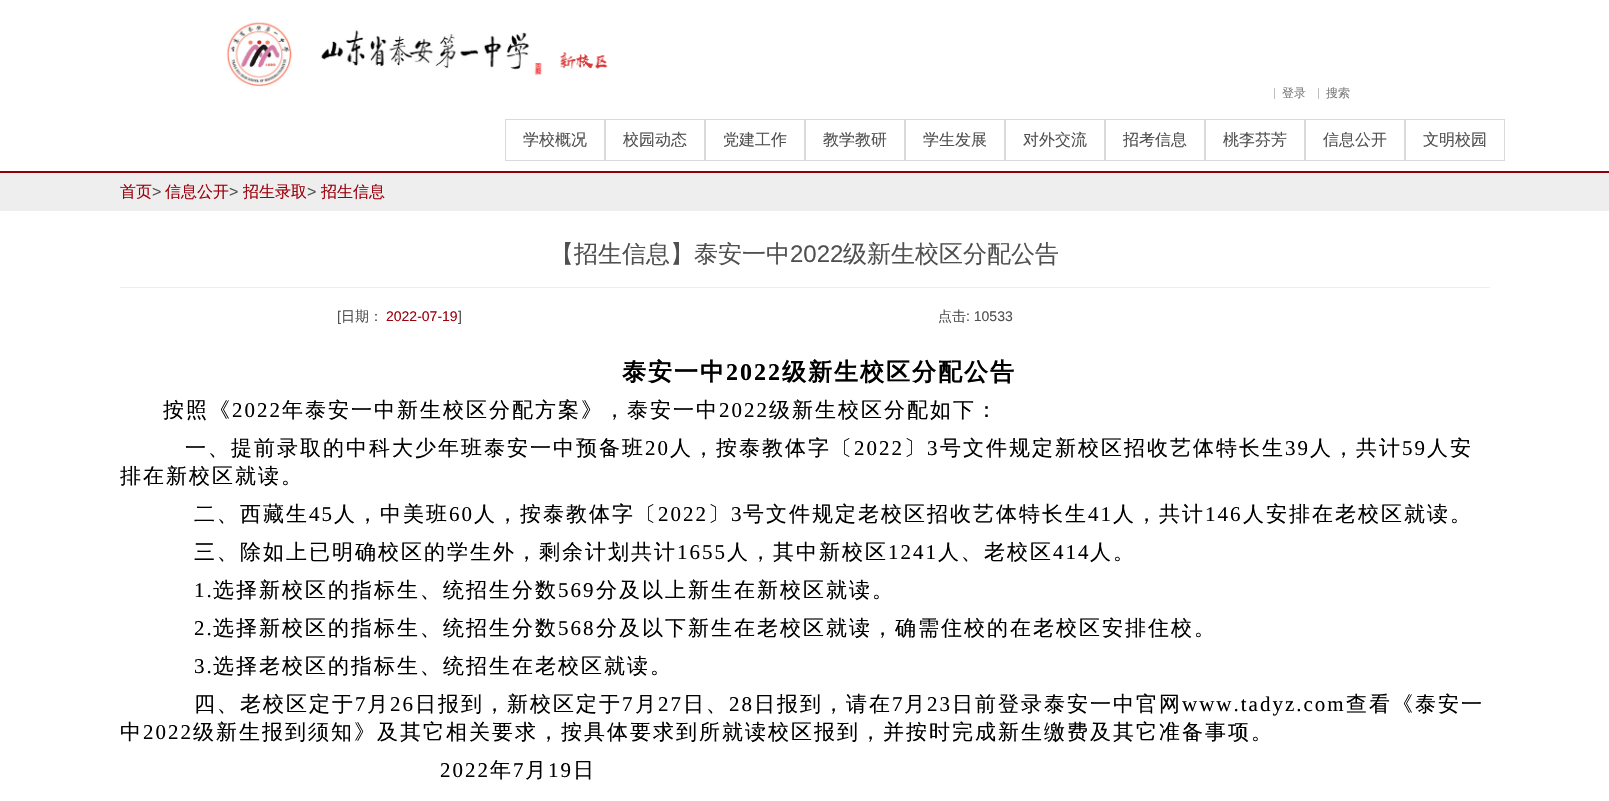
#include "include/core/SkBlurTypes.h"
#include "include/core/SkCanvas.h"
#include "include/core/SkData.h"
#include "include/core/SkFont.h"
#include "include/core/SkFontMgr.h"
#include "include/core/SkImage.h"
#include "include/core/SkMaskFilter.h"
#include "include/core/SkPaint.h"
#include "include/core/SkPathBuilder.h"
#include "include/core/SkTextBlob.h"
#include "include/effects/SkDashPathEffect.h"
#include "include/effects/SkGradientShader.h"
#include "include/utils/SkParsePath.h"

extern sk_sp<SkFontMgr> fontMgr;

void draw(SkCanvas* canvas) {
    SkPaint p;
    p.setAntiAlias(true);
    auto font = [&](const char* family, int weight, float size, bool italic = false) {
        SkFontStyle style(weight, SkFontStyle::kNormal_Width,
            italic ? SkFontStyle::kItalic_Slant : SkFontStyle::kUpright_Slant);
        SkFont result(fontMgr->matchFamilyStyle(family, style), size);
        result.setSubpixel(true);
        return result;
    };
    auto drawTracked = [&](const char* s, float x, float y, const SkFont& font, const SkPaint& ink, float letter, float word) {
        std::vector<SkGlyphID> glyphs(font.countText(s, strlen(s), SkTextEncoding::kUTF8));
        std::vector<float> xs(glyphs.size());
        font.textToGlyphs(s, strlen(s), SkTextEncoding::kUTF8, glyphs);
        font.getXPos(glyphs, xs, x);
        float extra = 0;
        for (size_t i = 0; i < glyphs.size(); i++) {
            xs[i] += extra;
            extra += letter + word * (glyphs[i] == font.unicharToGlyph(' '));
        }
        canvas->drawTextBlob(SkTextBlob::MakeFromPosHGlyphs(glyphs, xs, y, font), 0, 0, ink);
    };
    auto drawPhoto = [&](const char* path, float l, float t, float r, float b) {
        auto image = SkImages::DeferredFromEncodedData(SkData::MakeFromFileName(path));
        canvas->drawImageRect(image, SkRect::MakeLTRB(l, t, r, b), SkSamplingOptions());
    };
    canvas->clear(0xFFFFFFFF);
    drawPhoto("media/1.png", 226, 22, 608, 87);
    auto font1 = font("WenQuanYi Zen Hei", 500, 12);
    p.setColor(0xFF7D7D7D);
    canvas->drawString("登录", 1282, 97, font1, p);
    p.setColor(0xFFBEBEBE);
    canvas->drawRect(SkRect::MakeLTRB(1274, 88, 1275, 99), p);
    p.setColor(0xFF7D7D7D);
    canvas->drawString("搜索", 1326, 97, font1, p);
    p.setColor(0xFFBEBEBE);
    canvas->drawRect(SkRect::MakeLTRB(1318, 88, 1319, 99), p);
    p.setStyle(SkPaint::kStroke_Style);
    p.setStrokeWidth(1);
    p.setColor(0xFFDADADA);
    canvas->drawRect(SkRect::MakeLTRB(505.5f, 119.5f, 604.5f, 160.5f), p);
    auto font2 = font("WenQuanYi Zen Hei", 500, 16);
    p.setStyle(SkPaint::kFill_Style);
    p.setColor(0xFF505050);
    canvas->drawString("学校概况", 523, 145, font2, p);
    p.setStyle(SkPaint::kStroke_Style);
    p.setColor(0xFFDADADA);
    canvas->drawRect(SkRect::MakeLTRB(605.5f, 119.5f, 704.5f, 160.5f), p);
    p.setStyle(SkPaint::kFill_Style);
    p.setColor(0xFF505050);
    canvas->drawString("校园动态", 623, 145, font2, p);
    p.setStyle(SkPaint::kStroke_Style);
    p.setColor(0xFFDADADA);
    canvas->drawRect(SkRect::MakeLTRB(705.5f, 119.5f, 804.5f, 160.5f), p);
    p.setStyle(SkPaint::kFill_Style);
    p.setColor(0xFF505050);
    canvas->drawString("党建工作", 723, 145, font2, p);
    p.setStyle(SkPaint::kStroke_Style);
    p.setColor(0xFFDADADA);
    canvas->drawRect(SkRect::MakeLTRB(805.5f, 119.5f, 904.5f, 160.5f), p);
    p.setStyle(SkPaint::kFill_Style);
    p.setColor(0xFF505050);
    canvas->drawString("教学教研", 823, 145, font2, p);
    p.setStyle(SkPaint::kStroke_Style);
    p.setColor(0xFFDADADA);
    canvas->drawRect(SkRect::MakeLTRB(905.5f, 119.5f, 1004.5f, 160.5f), p);
    p.setStyle(SkPaint::kFill_Style);
    p.setColor(0xFF505050);
    canvas->drawString("学生发展", 923, 145, font2, p);
    p.setStyle(SkPaint::kStroke_Style);
    p.setColor(0xFFDADADA);
    canvas->drawRect(SkRect::MakeLTRB(1005.5f, 119.5f, 1104.5f, 160.5f), p);
    p.setStyle(SkPaint::kFill_Style);
    p.setColor(0xFF505050);
    canvas->drawString("对外交流", 1023, 145, font2, p);
    p.setStyle(SkPaint::kStroke_Style);
    p.setColor(0xFFDADADA);
    canvas->drawRect(SkRect::MakeLTRB(1105.5f, 119.5f, 1204.5f, 160.5f), p);
    p.setStyle(SkPaint::kFill_Style);
    p.setColor(0xFF505050);
    canvas->drawString("招考信息", 1123, 145, font2, p);
    p.setStyle(SkPaint::kStroke_Style);
    p.setColor(0xFFDADADA);
    canvas->drawRect(SkRect::MakeLTRB(1205.5f, 119.5f, 1304.5f, 160.5f), p);
    p.setStyle(SkPaint::kFill_Style);
    p.setColor(0xFF505050);
    canvas->drawString("桃李芬芳", 1223, 145, font2, p);
    p.setStyle(SkPaint::kStroke_Style);
    p.setColor(0xFFDADADA);
    canvas->drawRect(SkRect::MakeLTRB(1305.5f, 119.5f, 1404.5f, 160.5f), p);
    p.setStyle(SkPaint::kFill_Style);
    p.setColor(0xFF505050);
    canvas->drawString("信息公开", 1323, 145, font2, p);
    p.setStyle(SkPaint::kStroke_Style);
    p.setColor(0xFFDADADA);
    canvas->drawRect(SkRect::MakeLTRB(1405.5f, 119.5f, 1504.5f, 160.5f), p);
    p.setStyle(SkPaint::kFill_Style);
    p.setColor(0xFF505050);
    canvas->drawString("文明校园", 1423, 145, font2, p);
    p.setColor(0xFFEEEEEE);
    canvas->drawRect(SkRect::MakeLTRB(0, 173, 1609, 211), p);
    p.setColor(0xFF90000A);
    canvas->drawRect(SkRect::MakeLTRB(0, 171, 1609, 173), p);
    p.setColor(0xFF9C020D);
    canvas->drawString("首页", 120, 197, font2, p);
    auto font3 = font("Liberation Sans", 400, 16);
    p.setColor(0xFF505050);
    canvas->drawString(">", 152, 197, font3, p);
    p.setColor(0xFF9C020D);
    canvas->drawString("信息公开", 165, 197, font2, p);
    p.setColor(0xFF505050);
    canvas->drawString(">", 229, 197, font3, p);
    p.setColor(0xFF9C020D);
    canvas->drawString("招生录取", 243, 197, font2, p);
    p.setColor(0xFF505050);
    canvas->drawString(">", 307, 197, font3, p);
    p.setColor(0xFF9C020D);
    canvas->drawString("招生信息", 321, 197, font2, p);
    auto font4 = font("WenQuanYi Zen Hei", 500, 24);
    p.setColor(0xFF505050);
    canvas->drawString("【招生信息】泰安一中", 550, 262, font4, p);
    auto font5 = font("Liberation Sans", 400, 24);
    canvas->drawString("2022", 790, 262, font5, p);
    canvas->drawString("级新生校区分配公告", 843, 262, font4, p);
    p.setColor(0xFFEEEEEE);
    canvas->drawRect(SkRect::MakeLTRB(120, 287, 1490, 288), p);
    auto font6 = font("Liberation Sans", 400, 14);
    p.setColor(0xFF505050);
    canvas->drawString("[", 337, 321, font6, p);
    auto font7 = font("WenQuanYi Zen Hei", 500, 14);
    canvas->drawString("日期：", 341, 321, font7, p);
    p.setColor(0xFF9C020D);
    canvas->drawString("2022-07-19", 386, 321, font6, p);
    p.setColor(0xFF505050);
    canvas->drawString("]", 458, 321, font6, p);
    canvas->drawString("点击", 938, 321, font7, p);
    canvas->drawString(": 10533", 966, 321, font6, p);
    auto font8 = font("WenQuanYi Zen Hei", 700, 24);
    p.setColor(0xFF000000);
    drawTracked("泰安一中", 622, 380, font8, p, 2, 0);
    auto font9 = font("Liberation Serif", 700, 24);
    drawTracked("2022", 726, 380, font9, p, 2, 0);
    drawTracked("级新生校区分配公告", 782, 380, font8, p, 2, 0);
    auto font10 = font("WenQuanYi Zen Hei", 500, 21);
    drawTracked("按照《", 163, 417, font10, p, 2, 0);
    auto font11 = font("Liberation Serif", 400, 21);
    drawTracked("2022", 232, 417, font11, p, 2, 0);
    drawTracked("年泰安一中新生校区分配方案》，泰安一中", 282, 417, font10, p, 2, 0);
    drawTracked("2022", 719, 417, font11, p, 2, 0);
    drawTracked("级新生校区分配如下：", 769, 417, font10, p, 2, 0);
    drawTracked("一、提前录取的中科大少年班泰安一中预备班", 185, 455, font10, p, 2, 0);
    drawTracked("20", 645, 455, font11, p, 2, 0);
    drawTracked("人，按泰教体字〔", 670, 455, font10, p, 2, 0);
    drawTracked("2022", 854, 455, font11, p, 2, 0);
    drawTracked("〕", 904, 455, font10, p, 2, 0);
    drawTracked("3", 927, 455, font11, p, 2, 0);
    drawTracked("号文件规定新校区招收艺体特长生", 940, 455, font10, p, 2, 0);
    drawTracked("39", 1285, 455, font11, p, 2, 0);
    drawTracked("人，共计", 1310, 455, font10, p, 2, 0);
    drawTracked("59", 1402, 455, font11, p, 2, 0);
    {
        const struct { const char* s; float x, y; } items[] = {
            {"人安", 1427, 455},
            {"排在新校区就读。", 120, 483},
            {"二、西藏生", 194, 521},
        };
        for (auto [s, x, y] : items) {
            drawTracked(s, x, y, font10, p, 2, 0);
        }
    }
    drawTracked("45", 309, 521, font11, p, 2, 0);
    drawTracked("人，中美班", 334, 521, font10, p, 2, 0);
    drawTracked("60", 449, 521, font11, p, 2, 0);
    drawTracked("人，按泰教体字〔", 474, 521, font10, p, 2, 0);
    drawTracked("2022", 658, 521, font11, p, 2, 0);
    drawTracked("〕", 708, 521, font10, p, 2, 0);
    drawTracked("3", 731, 521, font11, p, 2, 0);
    drawTracked("号文件规定老校区招收艺体特长生", 743, 521, font10, p, 2, 0);
    drawTracked("41", 1088, 521, font11, p, 2, 0);
    drawTracked("人，共计", 1113, 521, font10, p, 2, 0);
    drawTracked("146", 1205, 521, font11, p, 2, 0);
    drawTracked("人安排在老校区就读。", 1243, 521, font10, p, 2, 0);
    drawTracked("三、除如上已明确校区的学生外，剩余计划共计", 194, 559, font10, p, 2, 0);
    drawTracked("1655", 677, 559, font11, p, 2, 0);
    drawTracked("人，其中新校区", 727, 559, font10, p, 2, 0);
    drawTracked("1241", 888, 559, font11, p, 2, 0);
    drawTracked("人、老校区", 938, 559, font10, p, 2, 0);
    drawTracked("414", 1053, 559, font11, p, 2, 0);
    drawTracked("人。", 1090, 559, font10, p, 2, 0);
    drawTracked("1.", 194, 597, font11, p, 2, 0);
    drawTracked("选择新校区的指标生、统招生分数", 213, 597, font10, p, 2, 0);
    drawTracked("569", 558, 597, font11, p, 2, 0);
    drawTracked("分及以上新生在新校区就读。", 596, 597, font10, p, 2, 0);
    drawTracked("2.", 194, 635, font11, p, 2, 0);
    drawTracked("选择新校区的指标生、统招生分数", 213, 635, font10, p, 2, 0);
    drawTracked("568", 558, 635, font11, p, 2, 0);
    drawTracked("分及以下新生在老校区就读，确需住校的在老校区安排住校。", 596, 635, font10, p, 2, 0);
    drawTracked("3.", 194, 673, font11, p, 2, 0);
    drawTracked("选择老校区的指标生、统招生在老校区就读。", 213, 673, font10, p, 2, 0);
    drawTracked("四、老校区定于", 194, 711, font10, p, 2, 0);
    drawTracked("7", 355, 711, font11, p, 2, 0);
    drawTracked("月", 367, 711, font10, p, 2, 0);
    drawTracked("26", 390, 711, font11, p, 2, 0);
    drawTracked("日报到，新校区定于", 415, 711, font10, p, 2, 0);
    drawTracked("7", 622, 711, font11, p, 2, 0);
    drawTracked("月", 635, 711, font10, p, 2, 0);
    drawTracked("27", 658, 711, font11, p, 2, 0);
    drawTracked("日、", 683, 711, font10, p, 2, 0);
    drawTracked("28", 729, 711, font11, p, 2, 0);
    drawTracked("日报到，请在", 754, 711, font10, p, 2, 0);
    drawTracked("7", 892, 711, font11, p, 2, 0);
    drawTracked("月", 904, 711, font10, p, 2, 0);
    drawTracked("23", 927, 711, font11, p, 2, 0);
    drawTracked("日前登录泰安一中官网", 952, 711, font10, p, 2, 0);
    drawTracked("www.tadyz.com", 1182, 711, font11, p, 2, 0);
    drawTracked("查看《泰安一", 1346, 711, font10, p, 2, 0);
    drawTracked("中", 120, 739, font10, p, 2, 0);
    drawTracked("2022", 143, 739, font11, p, 2, 0);
    drawTracked("级新生报到须知》及其它相关要求，按具体要求到所就读校区报到，并按时完成新生缴费及其它准备事项。", 193, 739, font10, p, 2, 0);
    drawTracked("2022", 440, 777, font11, p, 2, 0);
    drawTracked("年", 490, 777, font10, p, 2, 0);
    drawTracked("7", 513, 777, font11, p, 2, 0);
    drawTracked("月", 525, 777, font10, p, 2, 0);
    drawTracked("19", 548, 777, font11, p, 2, 0);
    drawTracked("日", 573, 777, font10, p, 2, 0);
}
